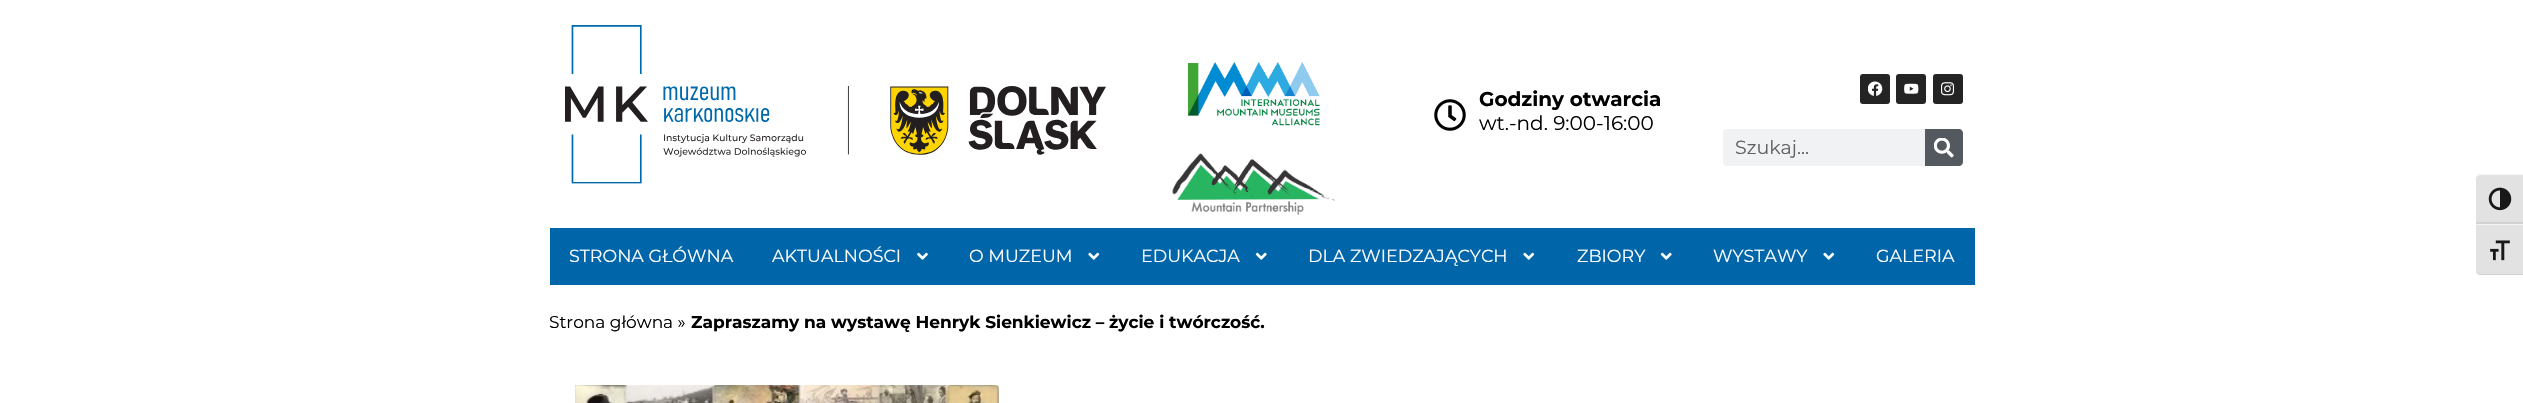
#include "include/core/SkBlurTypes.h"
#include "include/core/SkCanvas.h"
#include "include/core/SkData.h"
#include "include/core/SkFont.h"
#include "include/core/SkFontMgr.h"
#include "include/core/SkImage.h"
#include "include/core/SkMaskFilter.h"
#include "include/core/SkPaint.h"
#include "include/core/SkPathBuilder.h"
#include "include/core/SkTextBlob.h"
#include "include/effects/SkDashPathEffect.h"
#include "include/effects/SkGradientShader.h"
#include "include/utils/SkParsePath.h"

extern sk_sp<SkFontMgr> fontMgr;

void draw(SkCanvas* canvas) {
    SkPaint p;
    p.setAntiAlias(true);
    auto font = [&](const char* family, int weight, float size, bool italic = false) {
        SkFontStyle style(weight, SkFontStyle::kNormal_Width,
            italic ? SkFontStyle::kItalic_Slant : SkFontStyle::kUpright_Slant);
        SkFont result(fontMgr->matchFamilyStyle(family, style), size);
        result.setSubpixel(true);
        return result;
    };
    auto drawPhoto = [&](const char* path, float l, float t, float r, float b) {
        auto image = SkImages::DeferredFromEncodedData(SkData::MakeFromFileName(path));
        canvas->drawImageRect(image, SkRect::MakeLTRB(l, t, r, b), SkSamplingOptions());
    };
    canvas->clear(0xFFFFFFFF);
    drawPhoto("media/1.png", 565, 25, 1106, 184);
    drawPhoto("media/2.png", 1188, 62, 1320, 126);
    drawPhoto("media/3.png", 1172, 153, 1335, 215);
    drawPhoto("media/4.png", 1434, 99, 1466, 131);
    auto font1 = font("Montserrat", 700, 20);
    p.setColor(0xFF000000);
    canvas->drawString("Godziny otwarcia", 1479, 106, font1, p);
    auto font2 = font("Montserrat", 400, 20);
    canvas->drawString("wt.-nd. 9:00-16:00", 1479, 130, font2, p);
    p.setColor(0xFF242424);
    canvas->drawRoundRect(SkRect::MakeLTRB(1860, 74, 1890, 104), 3, 3, p);
    drawPhoto("media/5.png", 1868, 81, 1883, 96);
    canvas->drawRoundRect(SkRect::MakeLTRB(1896, 74, 1926, 104), 3, 3, p);
    drawPhoto("media/6.png", 1904, 83, 1919, 94);
    canvas->drawRoundRect(SkRect::MakeLTRB(1933, 74, 1963, 104), 3, 3, p);
    drawPhoto("media/7.png", 1941, 82, 1955, 96);
    p.setColor(0xFFF1F2F3);
    canvas->drawRoundRect(SkRect::MakeLTRB(1723, 129, 1963, 166), 4, 4, p);
    auto font3 = font("Montserrat", 400, 19);
    p.setColor(0xFF606161);
    canvas->drawString("Szukaj...", 1735, 154, font3, p);
    p.setColor(0xFF54595F);
    canvas->drawPath(SkPathBuilder().moveTo(1925, 129).lineTo(1959, 129).cubicTo(1961, 129, 1963, 131, 1963, 133).lineTo(1963, 162).cubicTo(1963, 164, 1961, 166, 1959, 166).lineTo(1925, 166).close().detach(), p);
    drawPhoto("media/8.png", 1934, 138, 1954, 158);
    p.setColor(0xFF0066A9);
    canvas->drawRect(SkRect::MakeLTRB(550, 228, 1975, 285), p);
    auto font4 = font("Montserrat", 400, 17.5f);
    p.setColor(0xFFFFFFFF);
    canvas->drawString("STRONA GŁÓWNA", 569, 262, font4, p);
    canvas->drawString("AKTUALNOŚCI", 772, 262, font4, p);
    drawPhoto("media/9.png", 917, 252, 928, 260);
    canvas->drawString("O MUZEUM", 969, 262, font4, p);
    drawPhoto("media/10.png", 1088, 252, 1100, 260);
    canvas->drawString("EDUKACJA", 1141, 262, font4, p);
    drawPhoto("media/11.png", 1255, 252, 1267, 260);
    canvas->drawString("DLA ZWIEDZAJĄCYCH", 1308, 262, font4, p);
    drawPhoto("media/10.png", 1523, 252, 1535, 260);
    canvas->drawString("ZBIORY", 1577, 262, font4, p);
    drawPhoto("media/11.png", 1660, 252, 1672, 260);
    canvas->drawString("WYSTAWY", 1713, 262, font4, p);
    drawPhoto("media/10.png", 1823, 252, 1835, 260);
    canvas->drawString("GALERIA", 1876, 262, font4, p);
    p.setColor(0xFFE2E2E2);
    canvas->drawPath(SkPathBuilder().moveTo(2481, 174).lineTo(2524, 174).lineTo(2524, 224).lineTo(2476, 224).lineTo(2476, 179).cubicTo(2476, 176, 2478, 174, 2481, 174).close().detach(), p);
    p.setColor(0xFFF5F5F5);
    canvas->drawPath(SkPathBuilder().moveTo(2481, 174).lineTo(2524, 174).lineTo(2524, 175).lineTo(2481, 175).cubicTo(2479, 175, 2477, 176, 2476, 178).cubicTo(2476, 175, 2479, 174, 2481, 174).close().detach(), p);
    p.setColor(0xFFD2D2D2);
    canvas->drawRect(SkRect::MakeLTRB(2476, 222, 2523, 224), p);
    drawPhoto("media/12.png", 2488, 187, 2512, 211);
    p.setColor(0xFFE2E2E2);
    canvas->drawPath(SkPathBuilder().moveTo(2476, 224).lineTo(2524, 224).lineTo(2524, 275).lineTo(2481, 275).cubicTo(2478, 275, 2476, 273, 2476, 270).close().detach(), p);
    p.setColor(0xFFF5F5F5);
    canvas->drawRect(SkRect::MakeLTRB(2476, 224, 2523, 225), p);
    p.setColor(0xFFD2D2D2);
    canvas->drawPath(SkPathBuilder().moveTo(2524, 275).lineTo(2481, 275).cubicTo(2479, 275, 2477, 274, 2476, 272).lineTo(2476, 271).cubicTo(2477, 273, 2479, 274, 2481, 274).lineTo(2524, 274).close().detach(), p);
    drawPhoto("media/13.png", 2490, 240, 2510, 261);
    auto font5 = font("Montserrat", 400, 17);
    p.setColor(0xFF000000);
    canvas->drawString("Strona główna »", 549, 328, font5, p);
    auto font6 = font("Montserrat", 700, 17);
    canvas->drawString("Zapraszamy na wystawę Henryk Sienkiewicz – życie i twórczość.", 691, 328, font6, p);
    drawPhoto("media/14.png", 575, 385, 999, 403);
}
